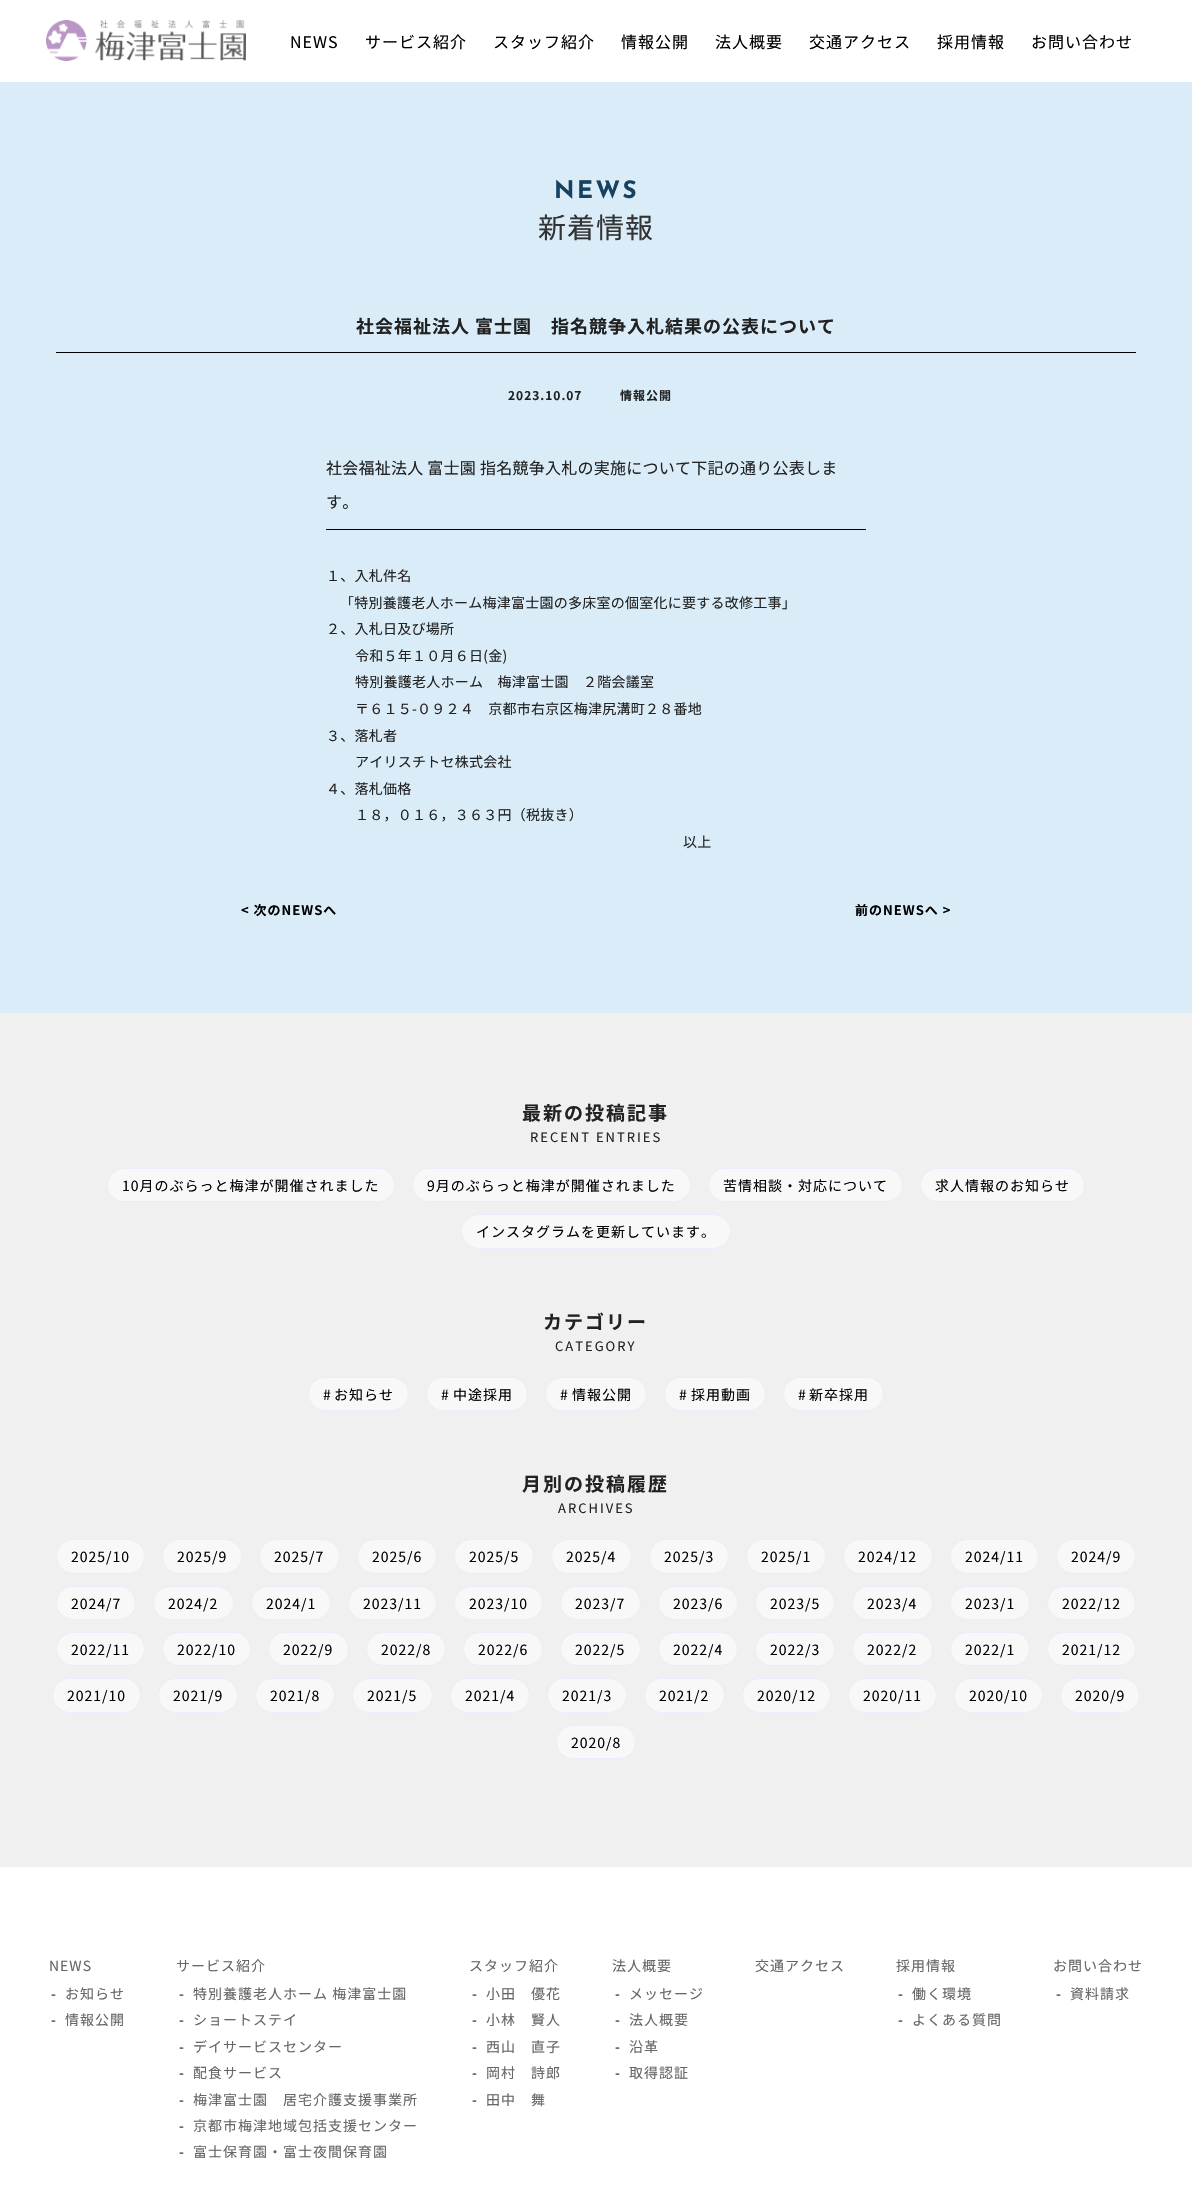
#include "include/core/SkBlurTypes.h"
#include "include/core/SkCanvas.h"
#include "include/core/SkData.h"
#include "include/core/SkFont.h"
#include "include/core/SkFontMgr.h"
#include "include/core/SkImage.h"
#include "include/core/SkMaskFilter.h"
#include "include/core/SkPaint.h"
#include "include/core/SkPathBuilder.h"
#include "include/core/SkTextBlob.h"
#include "include/effects/SkDashPathEffect.h"
#include "include/effects/SkGradientShader.h"
#include "include/utils/SkParsePath.h"

extern sk_sp<SkFontMgr> fontMgr;

void draw(SkCanvas* canvas) {
    SkPaint p;
    p.setAntiAlias(true);
    auto font = [&](const char* family, int weight, float size, bool italic = false) {
        SkFontStyle style(weight, SkFontStyle::kNormal_Width,
            italic ? SkFontStyle::kItalic_Slant : SkFontStyle::kUpright_Slant);
        SkFont result(fontMgr->matchFamilyStyle(family, style), size);
        result.setSubpixel(true);
        return result;
    };
    auto drawTracked = [&](const char* s, float x, float y, const SkFont& font, const SkPaint& ink, float letter, float word) {
        std::vector<SkGlyphID> glyphs(font.countText(s, strlen(s), SkTextEncoding::kUTF8));
        std::vector<float> xs(glyphs.size());
        font.textToGlyphs(s, strlen(s), SkTextEncoding::kUTF8, glyphs);
        font.getXPos(glyphs, xs, x);
        float extra = 0;
        for (size_t i = 0; i < glyphs.size(); i++) {
            xs[i] += extra;
            extra += letter + word * (glyphs[i] == font.unicharToGlyph(' '));
        }
        canvas->drawTextBlob(SkTextBlob::MakeFromPosHGlyphs(glyphs, xs, y, font), 0, 0, ink);
    };
    auto drawPhoto = [&](const char* path, float l, float t, float r, float b) {
        auto image = SkImages::DeferredFromEncodedData(SkData::MakeFromFileName(path));
        canvas->drawImageRect(image, SkRect::MakeLTRB(l, t, r, b), SkSamplingOptions());
    };
    canvas->clear(0xFFFFFFFF);
    drawPhoto("media/1.png", 46, 20, 246, 61);
    auto font1 = font("Noto Sans JP", 400, 16);
    p.setColor(0xFF000000);
    {
        const struct { const char* s; float x, y; } items[] = {
            {"NEWS", 290, 48},
            {"サービス紹介", 365, 48},
            {"スタッフ紹介", 493, 48},
            {"情報公開", 621, 48},
            {"法人概要", 715, 48},
            {"交通アクセス", 809, 48},
            {"採用情報", 937, 48},
            {"お問い合わせ", 1031, 48},
        };
        for (auto [s, x, y] : items) {
            drawTracked(s, x, y, font1, p, 1, 0);
        }
    }
    p.setColor(0xFFD9ECF8);
    canvas->drawRect(SkRect::MakeLTRB(0, 82, 1192, 1013), p);
    auto font2 = font("Josefin Sans", 700, 24);
    p.setColor(0xFF164261);
    drawTracked("NEWS", 554, 198, font2, p, 2.5f, 0);
    auto font3 = font("Noto Sans JP", 400, 28);
    p.setColor(0xFF333333);
    drawTracked("新着情報", 538, 238, font3, p, 1, 0);
    p.setColor(0xFF000000);
    canvas->drawRect(SkRect::MakeLTRB(56, 352, 1136, 353), p);
    auto font4 = font("Noto Sans JP", 700, 18);
    p.setColor(0xFF222222);
    drawTracked("社会福祉法人 富士園　指名競争入札結果の公表について", 356, 333, font4, p, 1, 0);
    auto font5 = font("Noto Sans JP", 700, 12);
    drawTracked("2023.10.07", 508, 400, font5, p, 1, 0);
    drawTracked("情報公開", 620, 400, font5, p, 1, 0);
    p.setColor(0xFF000000);
    canvas->drawRect(SkRect::MakeLTRB(326, 529, 866, 530), p);
    p.setColor(0xFF222222);
    drawTracked("社会福祉法人 富士園 指名競争入札の実施について下記の通り公表しま", 326, 474, font1, p, 0.25f, 0);
    drawTracked("す。", 326, 508, font1, p, 0.25f, 0);
    auto font6 = font("Noto Sans JP", 400, 14);
    {
        const struct { const char* s; float x, y; } items[] = {
            {"１、入札件名", 326, 581},
            {"「特別養護老人ホーム梅津富士園の多床室の個室化に要する改修工事」", 340, 608},
            {"２、入札日及び場所", 326, 634},
            {"令和５年１０月６日(金)", 355, 661},
            {"特別養護老人ホーム　梅津富士園　２階会議室", 355, 687},
            {"〒６１５-０９２４　京都市右京区梅津尻溝町２８番地", 355, 714},
            {"３、落札者", 326, 741},
            {"アイリスチトセ株式会社", 355, 767},
            {"４、落札価格", 326, 794},
            {"１８，０１６，３６３円（税抜き）", 355, 820},
            {"以上", 683, 847},
        };
        for (auto [s, x, y] : items) {
            drawTracked(s, x, y, font6, p, 0.25f, 0);
        }
    }
    auto font7 = font("Noto Sans JP", 700, 13);
    p.setColor(0xFF000000);
    drawTracked("< 次のNEWSへ", 241, 915, font7, p, 1, 0);
    drawTracked("前のNEWSへ >", 855, 915, font7, p, 1, 0);
    p.setColor(0xFFF0F0F0);
    canvas->drawRect(SkRect::MakeLTRB(0, 1013, 1192, 1867), p);
    auto font8 = font("Noto Sans JP", 700, 19);
    p.setColor(0xFF222222);
    drawTracked("最新の投稿記事", 522, 1120, font8, p, 2, 0);
    auto font9 = font("Noto Sans JP", 400, 13);
    drawTracked("RECENT ENTRIES", 530, 1142, font9, p, 2, 0);
    p.setColor(0xFFF8F8F8);
    canvas->drawRoundRect(SkRect::MakeLTRB(107.5f, 1168.5f, 394.5f, 1201.5f), 16.5f, 16.5f, p);
    p.setStyle(SkPaint::kStroke_Style);
    p.setStrokeWidth(1);
    p.setColor(0xFFECECFB);
    canvas->drawRoundRect(SkRect::MakeLTRB(107.5f, 1168.5f, 394.5f, 1201.5f), 16.5f, 16.5f, p);
    p.setStyle(SkPaint::kFill_Style);
    p.setColor(0xFF000000);
    drawTracked("10月のぶらっと梅津が開催されました", 122, 1191, font6, p, 1, 0);
    p.setColor(0xFFF8F8F8);
    canvas->drawRoundRect(SkRect::MakeLTRB(412.5f, 1168.5f, 690.5f, 1201.5f), 16.5f, 16.5f, p);
    p.setStyle(SkPaint::kStroke_Style);
    p.setColor(0xFFECECFB);
    canvas->drawRoundRect(SkRect::MakeLTRB(412.5f, 1168.5f, 690.5f, 1201.5f), 16.5f, 16.5f, p);
    p.setStyle(SkPaint::kFill_Style);
    p.setColor(0xFF000000);
    drawTracked("9月のぶらっと梅津が開催されました", 427, 1191, font6, p, 1, 0);
    p.setColor(0xFFF8F8F8);
    canvas->drawRoundRect(SkRect::MakeLTRB(708.5f, 1168.5f, 902.5f, 1201.5f), 16.5f, 16.5f, p);
    p.setStyle(SkPaint::kStroke_Style);
    p.setColor(0xFFECECFB);
    canvas->drawRoundRect(SkRect::MakeLTRB(708.5f, 1168.5f, 902.5f, 1201.5f), 16.5f, 16.5f, p);
    p.setStyle(SkPaint::kFill_Style);
    p.setColor(0xFF000000);
    drawTracked("苦情相談・対応について", 723, 1191, font6, p, 1, 0);
    p.setColor(0xFFF8F8F8);
    canvas->drawRoundRect(SkRect::MakeLTRB(920.5f, 1168.5f, 1084.5f, 1201.5f), 16.5f, 16.5f, p);
    p.setStyle(SkPaint::kStroke_Style);
    p.setColor(0xFFECECFB);
    canvas->drawRoundRect(SkRect::MakeLTRB(920.5f, 1168.5f, 1084.5f, 1201.5f), 16.5f, 16.5f, p);
    p.setStyle(SkPaint::kFill_Style);
    p.setColor(0xFF000000);
    drawTracked("求人情報のお知らせ", 935, 1191, font6, p, 1, 0);
    p.setColor(0xFFF8F8F8);
    canvas->drawRoundRect(SkRect::MakeLTRB(461.5f, 1214.5f, 730.5f, 1248.5f), 17, 17, p);
    p.setStyle(SkPaint::kStroke_Style);
    p.setColor(0xFFECECFB);
    canvas->drawRoundRect(SkRect::MakeLTRB(461.5f, 1214.5f, 730.5f, 1248.5f), 17, 17, p);
    p.setStyle(SkPaint::kFill_Style);
    p.setColor(0xFF000000);
    drawTracked("インスタグラムを更新しています。", 476, 1237, font6, p, 1, 0);
    p.setColor(0xFF222222);
    drawTracked("カテゴリー", 543, 1329, font8, p, 2, 0);
    drawTracked("CATEGORY", 555, 1351, font9, p, 2, 0);
    p.setColor(0xFFF8F8F8);
    canvas->drawRoundRect(SkRect::MakeLTRB(308.5f, 1377.5f, 408.5f, 1410.5f), 16.5f, 16.5f, p);
    p.setStyle(SkPaint::kStroke_Style);
    p.setColor(0xFFECECFB);
    canvas->drawRoundRect(SkRect::MakeLTRB(308.5f, 1377.5f, 408.5f, 1410.5f), 16.5f, 16.5f, p);
    p.setStyle(SkPaint::kFill_Style);
    p.setColor(0xFF000000);
    drawTracked("#", 323, 1400, font6, p, 1, 0);
    drawTracked("お知らせ", 334, 1400, font6, p, 1, 0);
    p.setColor(0xFFF8F8F8);
    canvas->drawRoundRect(SkRect::MakeLTRB(426.5f, 1377.5f, 527.5f, 1410.5f), 16.5f, 16.5f, p);
    p.setStyle(SkPaint::kStroke_Style);
    p.setColor(0xFFECECFB);
    canvas->drawRoundRect(SkRect::MakeLTRB(426.5f, 1377.5f, 527.5f, 1410.5f), 16.5f, 16.5f, p);
    p.setStyle(SkPaint::kFill_Style);
    p.setColor(0xFF000000);
    drawTracked("#", 441, 1400, font6, p, 1, 0);
    drawTracked("中途採用", 453, 1400, font6, p, 1, 0);
    p.setColor(0xFFF8F8F8);
    canvas->drawRoundRect(SkRect::MakeLTRB(545.5f, 1377.5f, 646.5f, 1410.5f), 16.5f, 16.5f, p);
    p.setStyle(SkPaint::kStroke_Style);
    p.setColor(0xFFECECFB);
    canvas->drawRoundRect(SkRect::MakeLTRB(545.5f, 1377.5f, 646.5f, 1410.5f), 16.5f, 16.5f, p);
    p.setStyle(SkPaint::kFill_Style);
    p.setColor(0xFF000000);
    drawTracked("#", 560, 1400, font6, p, 1, 0);
    drawTracked("情報公開", 572, 1400, font6, p, 1, 0);
    p.setColor(0xFFF8F8F8);
    canvas->drawRoundRect(SkRect::MakeLTRB(664.5f, 1377.5f, 765.5f, 1410.5f), 16.5f, 16.5f, p);
    p.setStyle(SkPaint::kStroke_Style);
    p.setColor(0xFFECECFB);
    canvas->drawRoundRect(SkRect::MakeLTRB(664.5f, 1377.5f, 765.5f, 1410.5f), 16.5f, 16.5f, p);
    p.setStyle(SkPaint::kFill_Style);
    p.setColor(0xFF000000);
    drawTracked("#", 679, 1400, font6, p, 1, 0);
    drawTracked("採用動画", 691, 1400, font6, p, 1, 0);
    p.setColor(0xFFF8F8F8);
    canvas->drawRoundRect(SkRect::MakeLTRB(783.5f, 1377.5f, 883.5f, 1410.5f), 16.5f, 16.5f, p);
    p.setStyle(SkPaint::kStroke_Style);
    p.setColor(0xFFECECFB);
    canvas->drawRoundRect(SkRect::MakeLTRB(783.5f, 1377.5f, 883.5f, 1410.5f), 16.5f, 16.5f, p);
    p.setStyle(SkPaint::kFill_Style);
    p.setColor(0xFF000000);
    drawTracked("#", 798, 1400, font6, p, 1, 0);
    drawTracked("新卒採用", 809, 1400, font6, p, 1, 0);
    p.setColor(0xFF222222);
    drawTracked("月別の投稿履歴", 522, 1491, font8, p, 2, 0);
    drawTracked("ARCHIVES", 558, 1513, font9, p, 2, 0);
    p.setColor(0xFFF8F8F8);
    canvas->drawRoundRect(SkRect::MakeLTRB(56.5f, 1539.5f, 144.5f, 1573.5f), 17, 17, p);
    p.setStyle(SkPaint::kStroke_Style);
    p.setColor(0xFFECECFB);
    canvas->drawRoundRect(SkRect::MakeLTRB(56.5f, 1539.5f, 144.5f, 1573.5f), 17, 17, p);
    p.setStyle(SkPaint::kFill_Style);
    p.setColor(0xFF000000);
    drawTracked("2025/10", 71, 1562, font6, p, 1, 0);
    p.setColor(0xFFF8F8F8);
    canvas->drawRoundRect(SkRect::MakeLTRB(162.5f, 1539.5f, 241.5f, 1573.5f), 17, 17, p);
    p.setStyle(SkPaint::kStroke_Style);
    p.setColor(0xFFECECFB);
    canvas->drawRoundRect(SkRect::MakeLTRB(162.5f, 1539.5f, 241.5f, 1573.5f), 17, 17, p);
    p.setStyle(SkPaint::kFill_Style);
    p.setColor(0xFF000000);
    drawTracked("2025/9", 177, 1562, font6, p, 1, 0);
    p.setColor(0xFFF8F8F8);
    canvas->drawRoundRect(SkRect::MakeLTRB(259.5f, 1539.5f, 339.5f, 1573.5f), 17, 17, p);
    p.setStyle(SkPaint::kStroke_Style);
    p.setColor(0xFFECECFB);
    canvas->drawRoundRect(SkRect::MakeLTRB(259.5f, 1539.5f, 339.5f, 1573.5f), 17, 17, p);
    p.setStyle(SkPaint::kFill_Style);
    p.setColor(0xFF000000);
    drawTracked("2025/7", 274, 1562, font6, p, 1, 0);
    p.setColor(0xFFF8F8F8);
    canvas->drawRoundRect(SkRect::MakeLTRB(357.5f, 1539.5f, 436.5f, 1573.5f), 17, 17, p);
    p.setStyle(SkPaint::kStroke_Style);
    p.setColor(0xFFECECFB);
    canvas->drawRoundRect(SkRect::MakeLTRB(357.5f, 1539.5f, 436.5f, 1573.5f), 17, 17, p);
    p.setStyle(SkPaint::kFill_Style);
    p.setColor(0xFF000000);
    drawTracked("2025/6", 372, 1562, font6, p, 1, 0);
    p.setColor(0xFFF8F8F8);
    canvas->drawRoundRect(SkRect::MakeLTRB(454.5f, 1539.5f, 533.5f, 1573.5f), 17, 17, p);
    p.setStyle(SkPaint::kStroke_Style);
    p.setColor(0xFFECECFB);
    canvas->drawRoundRect(SkRect::MakeLTRB(454.5f, 1539.5f, 533.5f, 1573.5f), 17, 17, p);
    p.setStyle(SkPaint::kFill_Style);
    p.setColor(0xFF000000);
    drawTracked("2025/5", 469, 1562, font6, p, 1, 0);
    p.setColor(0xFFF8F8F8);
    canvas->drawRoundRect(SkRect::MakeLTRB(551.5f, 1539.5f, 631.5f, 1573.5f), 17, 17, p);
    p.setStyle(SkPaint::kStroke_Style);
    p.setColor(0xFFECECFB);
    canvas->drawRoundRect(SkRect::MakeLTRB(551.5f, 1539.5f, 631.5f, 1573.5f), 17, 17, p);
    p.setStyle(SkPaint::kFill_Style);
    p.setColor(0xFF000000);
    drawTracked("2025/4", 566, 1562, font6, p, 1, 0);
    p.setColor(0xFFF8F8F8);
    canvas->drawRoundRect(SkRect::MakeLTRB(649.5f, 1539.5f, 728.5f, 1573.5f), 17, 17, p);
    p.setStyle(SkPaint::kStroke_Style);
    p.setColor(0xFFECECFB);
    canvas->drawRoundRect(SkRect::MakeLTRB(649.5f, 1539.5f, 728.5f, 1573.5f), 17, 17, p);
    p.setStyle(SkPaint::kFill_Style);
    p.setColor(0xFF000000);
    drawTracked("2025/3", 664, 1562, font6, p, 1, 0);
    p.setColor(0xFFF8F8F8);
    canvas->drawRoundRect(SkRect::MakeLTRB(746.5f, 1539.5f, 825.5f, 1573.5f), 17, 17, p);
    p.setStyle(SkPaint::kStroke_Style);
    p.setColor(0xFFECECFB);
    canvas->drawRoundRect(SkRect::MakeLTRB(746.5f, 1539.5f, 825.5f, 1573.5f), 17, 17, p);
    p.setStyle(SkPaint::kFill_Style);
    p.setColor(0xFF000000);
    drawTracked("2025/1", 761, 1562, font6, p, 1, 0);
    p.setColor(0xFFF8F8F8);
    canvas->drawRoundRect(SkRect::MakeLTRB(843.5f, 1539.5f, 932.5f, 1573.5f), 17, 17, p);
    p.setStyle(SkPaint::kStroke_Style);
    p.setColor(0xFFECECFB);
    canvas->drawRoundRect(SkRect::MakeLTRB(843.5f, 1539.5f, 932.5f, 1573.5f), 17, 17, p);
    p.setStyle(SkPaint::kFill_Style);
    p.setColor(0xFF000000);
    drawTracked("2024/12", 858, 1562, font6, p, 1, 0);
    p.setColor(0xFFF8F8F8);
    canvas->drawRoundRect(SkRect::MakeLTRB(950.5f, 1539.5f, 1038.5f, 1573.5f), 17, 17, p);
    p.setStyle(SkPaint::kStroke_Style);
    p.setColor(0xFFECECFB);
    canvas->drawRoundRect(SkRect::MakeLTRB(950.5f, 1539.5f, 1038.5f, 1573.5f), 17, 17, p);
    p.setStyle(SkPaint::kFill_Style);
    p.setColor(0xFF000000);
    drawTracked("2024/11", 965, 1562, font6, p, 1, 0);
    p.setColor(0xFFF8F8F8);
    canvas->drawRoundRect(SkRect::MakeLTRB(1056.5f, 1539.5f, 1135.5f, 1573.5f), 17, 17, p);
    p.setStyle(SkPaint::kStroke_Style);
    p.setColor(0xFFECECFB);
    canvas->drawRoundRect(SkRect::MakeLTRB(1056.5f, 1539.5f, 1135.5f, 1573.5f), 17, 17, p);
    p.setStyle(SkPaint::kFill_Style);
    p.setColor(0xFF000000);
    drawTracked("2024/9", 1071, 1562, font6, p, 1, 0);
    p.setColor(0xFFF8F8F8);
    canvas->drawRoundRect(SkRect::MakeLTRB(56.5f, 1586.5f, 135.5f, 1619.5f), 16.5f, 16.5f, p);
    p.setStyle(SkPaint::kStroke_Style);
    p.setColor(0xFFECECFB);
    canvas->drawRoundRect(SkRect::MakeLTRB(56.5f, 1586.5f, 135.5f, 1619.5f), 16.5f, 16.5f, p);
    p.setStyle(SkPaint::kFill_Style);
    p.setColor(0xFF000000);
    drawTracked("2024/7", 71, 1609, font6, p, 1, 0);
    p.setColor(0xFFF8F8F8);
    canvas->drawRoundRect(SkRect::MakeLTRB(153.5f, 1586.5f, 233.5f, 1619.5f), 16.5f, 16.5f, p);
    p.setStyle(SkPaint::kStroke_Style);
    p.setColor(0xFFECECFB);
    canvas->drawRoundRect(SkRect::MakeLTRB(153.5f, 1586.5f, 233.5f, 1619.5f), 16.5f, 16.5f, p);
    p.setStyle(SkPaint::kFill_Style);
    p.setColor(0xFF000000);
    drawTracked("2024/2", 168, 1609, font6, p, 1, 0);
    p.setColor(0xFFF8F8F8);
    canvas->drawRoundRect(SkRect::MakeLTRB(251.5f, 1586.5f, 330.5f, 1619.5f), 16.5f, 16.5f, p);
    p.setStyle(SkPaint::kStroke_Style);
    p.setColor(0xFFECECFB);
    canvas->drawRoundRect(SkRect::MakeLTRB(251.5f, 1586.5f, 330.5f, 1619.5f), 16.5f, 16.5f, p);
    p.setStyle(SkPaint::kFill_Style);
    p.setColor(0xFF000000);
    drawTracked("2024/1", 266, 1609, font6, p, 1, 0);
    p.setColor(0xFFF8F8F8);
    canvas->drawRoundRect(SkRect::MakeLTRB(348.5f, 1586.5f, 436.5f, 1619.5f), 16.5f, 16.5f, p);
    p.setStyle(SkPaint::kStroke_Style);
    p.setColor(0xFFECECFB);
    canvas->drawRoundRect(SkRect::MakeLTRB(348.5f, 1586.5f, 436.5f, 1619.5f), 16.5f, 16.5f, p);
    p.setStyle(SkPaint::kFill_Style);
    p.setColor(0xFF000000);
    drawTracked("2023/11", 363, 1609, font6, p, 1, 0);
    p.setColor(0xFFF8F8F8);
    canvas->drawRoundRect(SkRect::MakeLTRB(454.5f, 1586.5f, 542.5f, 1619.5f), 16.5f, 16.5f, p);
    p.setStyle(SkPaint::kStroke_Style);
    p.setColor(0xFFECECFB);
    canvas->drawRoundRect(SkRect::MakeLTRB(454.5f, 1586.5f, 542.5f, 1619.5f), 16.5f, 16.5f, p);
    p.setStyle(SkPaint::kFill_Style);
    p.setColor(0xFF000000);
    drawTracked("2023/10", 469, 1609, font6, p, 1, 0);
    p.setColor(0xFFF8F8F8);
    canvas->drawRoundRect(SkRect::MakeLTRB(560.5f, 1586.5f, 640.5f, 1619.5f), 16.5f, 16.5f, p);
    p.setStyle(SkPaint::kStroke_Style);
    p.setColor(0xFFECECFB);
    canvas->drawRoundRect(SkRect::MakeLTRB(560.5f, 1586.5f, 640.5f, 1619.5f), 16.5f, 16.5f, p);
    p.setStyle(SkPaint::kFill_Style);
    p.setColor(0xFF000000);
    drawTracked("2023/7", 575, 1609, font6, p, 1, 0);
    p.setColor(0xFFF8F8F8);
    canvas->drawRoundRect(SkRect::MakeLTRB(658.5f, 1586.5f, 737.5f, 1619.5f), 16.5f, 16.5f, p);
    p.setStyle(SkPaint::kStroke_Style);
    p.setColor(0xFFECECFB);
    canvas->drawRoundRect(SkRect::MakeLTRB(658.5f, 1586.5f, 737.5f, 1619.5f), 16.5f, 16.5f, p);
    p.setStyle(SkPaint::kFill_Style);
    p.setColor(0xFF000000);
    drawTracked("2023/6", 673, 1609, font6, p, 1, 0);
    p.setColor(0xFFF8F8F8);
    canvas->drawRoundRect(SkRect::MakeLTRB(755.5f, 1586.5f, 834.5f, 1619.5f), 16.5f, 16.5f, p);
    p.setStyle(SkPaint::kStroke_Style);
    p.setColor(0xFFECECFB);
    canvas->drawRoundRect(SkRect::MakeLTRB(755.5f, 1586.5f, 834.5f, 1619.5f), 16.5f, 16.5f, p);
    p.setStyle(SkPaint::kFill_Style);
    p.setColor(0xFF000000);
    drawTracked("2023/5", 770, 1609, font6, p, 1, 0);
    p.setColor(0xFFF8F8F8);
    canvas->drawRoundRect(SkRect::MakeLTRB(852.5f, 1586.5f, 932.5f, 1619.5f), 16.5f, 16.5f, p);
    p.setStyle(SkPaint::kStroke_Style);
    p.setColor(0xFFECECFB);
    canvas->drawRoundRect(SkRect::MakeLTRB(852.5f, 1586.5f, 932.5f, 1619.5f), 16.5f, 16.5f, p);
    p.setStyle(SkPaint::kFill_Style);
    p.setColor(0xFF000000);
    drawTracked("2023/4", 867, 1609, font6, p, 1, 0);
    p.setColor(0xFFF8F8F8);
    canvas->drawRoundRect(SkRect::MakeLTRB(950.5f, 1586.5f, 1029.5f, 1619.5f), 16.5f, 16.5f, p);
    p.setStyle(SkPaint::kStroke_Style);
    p.setColor(0xFFECECFB);
    canvas->drawRoundRect(SkRect::MakeLTRB(950.5f, 1586.5f, 1029.5f, 1619.5f), 16.5f, 16.5f, p);
    p.setStyle(SkPaint::kFill_Style);
    p.setColor(0xFF000000);
    drawTracked("2023/1", 965, 1609, font6, p, 1, 0);
    p.setColor(0xFFF8F8F8);
    canvas->drawRoundRect(SkRect::MakeLTRB(1047.5f, 1586.5f, 1135.5f, 1619.5f), 16.5f, 16.5f, p);
    p.setStyle(SkPaint::kStroke_Style);
    p.setColor(0xFFECECFB);
    canvas->drawRoundRect(SkRect::MakeLTRB(1047.5f, 1586.5f, 1135.5f, 1619.5f), 16.5f, 16.5f, p);
    p.setStyle(SkPaint::kFill_Style);
    p.setColor(0xFF000000);
    drawTracked("2022/12", 1062, 1609, font6, p, 1, 0);
    p.setColor(0xFFF8F8F8);
    canvas->drawRoundRect(SkRect::MakeLTRB(56.5f, 1632.5f, 144.5f, 1665.5f), 16.5f, 16.5f, p);
    p.setStyle(SkPaint::kStroke_Style);
    p.setColor(0xFFECECFB);
    canvas->drawRoundRect(SkRect::MakeLTRB(56.5f, 1632.5f, 144.5f, 1665.5f), 16.5f, 16.5f, p);
    p.setStyle(SkPaint::kFill_Style);
    p.setColor(0xFF000000);
    drawTracked("2022/11", 71, 1655, font6, p, 1, 0);
    p.setColor(0xFFF8F8F8);
    canvas->drawRoundRect(SkRect::MakeLTRB(162.5f, 1632.5f, 250.5f, 1665.5f), 16.5f, 16.5f, p);
    p.setStyle(SkPaint::kStroke_Style);
    p.setColor(0xFFECECFB);
    canvas->drawRoundRect(SkRect::MakeLTRB(162.5f, 1632.5f, 250.5f, 1665.5f), 16.5f, 16.5f, p);
    p.setStyle(SkPaint::kFill_Style);
    p.setColor(0xFF000000);
    drawTracked("2022/10", 177, 1655, font6, p, 1, 0);
    p.setColor(0xFFF8F8F8);
    canvas->drawRoundRect(SkRect::MakeLTRB(268.5f, 1632.5f, 348.5f, 1665.5f), 16.5f, 16.5f, p);
    p.setStyle(SkPaint::kStroke_Style);
    p.setColor(0xFFECECFB);
    canvas->drawRoundRect(SkRect::MakeLTRB(268.5f, 1632.5f, 348.5f, 1665.5f), 16.5f, 16.5f, p);
    p.setStyle(SkPaint::kFill_Style);
    p.setColor(0xFF000000);
    drawTracked("2022/9", 283, 1655, font6, p, 1, 0);
    p.setColor(0xFFF8F8F8);
    canvas->drawRoundRect(SkRect::MakeLTRB(366.5f, 1632.5f, 445.5f, 1665.5f), 16.5f, 16.5f, p);
    p.setStyle(SkPaint::kStroke_Style);
    p.setColor(0xFFECECFB);
    canvas->drawRoundRect(SkRect::MakeLTRB(366.5f, 1632.5f, 445.5f, 1665.5f), 16.5f, 16.5f, p);
    p.setStyle(SkPaint::kFill_Style);
    p.setColor(0xFF000000);
    drawTracked("2022/8", 381, 1655, font6, p, 1, 0);
    p.setColor(0xFFF8F8F8);
    canvas->drawRoundRect(SkRect::MakeLTRB(463.5f, 1632.5f, 542.5f, 1665.5f), 16.5f, 16.5f, p);
    p.setStyle(SkPaint::kStroke_Style);
    p.setColor(0xFFECECFB);
    canvas->drawRoundRect(SkRect::MakeLTRB(463.5f, 1632.5f, 542.5f, 1665.5f), 16.5f, 16.5f, p);
    p.setStyle(SkPaint::kFill_Style);
    p.setColor(0xFF000000);
    drawTracked("2022/6", 478, 1655, font6, p, 1, 0);
    p.setColor(0xFFF8F8F8);
    canvas->drawRoundRect(SkRect::MakeLTRB(560.5f, 1632.5f, 640.5f, 1665.5f), 16.5f, 16.5f, p);
    p.setStyle(SkPaint::kStroke_Style);
    p.setColor(0xFFECECFB);
    canvas->drawRoundRect(SkRect::MakeLTRB(560.5f, 1632.5f, 640.5f, 1665.5f), 16.5f, 16.5f, p);
    p.setStyle(SkPaint::kFill_Style);
    p.setColor(0xFF000000);
    drawTracked("2022/5", 575, 1655, font6, p, 1, 0);
    p.setColor(0xFFF8F8F8);
    canvas->drawRoundRect(SkRect::MakeLTRB(658.5f, 1632.5f, 737.5f, 1665.5f), 16.5f, 16.5f, p);
    p.setStyle(SkPaint::kStroke_Style);
    p.setColor(0xFFECECFB);
    canvas->drawRoundRect(SkRect::MakeLTRB(658.5f, 1632.5f, 737.5f, 1665.5f), 16.5f, 16.5f, p);
    p.setStyle(SkPaint::kFill_Style);
    p.setColor(0xFF000000);
    drawTracked("2022/4", 673, 1655, font6, p, 1, 0);
    p.setColor(0xFFF8F8F8);
    canvas->drawRoundRect(SkRect::MakeLTRB(755.5f, 1632.5f, 834.5f, 1665.5f), 16.5f, 16.5f, p);
    p.setStyle(SkPaint::kStroke_Style);
    p.setColor(0xFFECECFB);
    canvas->drawRoundRect(SkRect::MakeLTRB(755.5f, 1632.5f, 834.5f, 1665.5f), 16.5f, 16.5f, p);
    p.setStyle(SkPaint::kFill_Style);
    p.setColor(0xFF000000);
    drawTracked("2022/3", 770, 1655, font6, p, 1, 0);
    p.setColor(0xFFF8F8F8);
    canvas->drawRoundRect(SkRect::MakeLTRB(852.5f, 1632.5f, 932.5f, 1665.5f), 16.5f, 16.5f, p);
    p.setStyle(SkPaint::kStroke_Style);
    p.setColor(0xFFECECFB);
    canvas->drawRoundRect(SkRect::MakeLTRB(852.5f, 1632.5f, 932.5f, 1665.5f), 16.5f, 16.5f, p);
    p.setStyle(SkPaint::kFill_Style);
    p.setColor(0xFF000000);
    drawTracked("2022/2", 867, 1655, font6, p, 1, 0);
    p.setColor(0xFFF8F8F8);
    canvas->drawRoundRect(SkRect::MakeLTRB(950.5f, 1632.5f, 1029.5f, 1665.5f), 16.5f, 16.5f, p);
    p.setStyle(SkPaint::kStroke_Style);
    p.setColor(0xFFECECFB);
    canvas->drawRoundRect(SkRect::MakeLTRB(950.5f, 1632.5f, 1029.5f, 1665.5f), 16.5f, 16.5f, p);
    p.setStyle(SkPaint::kFill_Style);
    p.setColor(0xFF000000);
    drawTracked("2022/1", 965, 1655, font6, p, 1, 0);
    p.setColor(0xFFF8F8F8);
    canvas->drawRoundRect(SkRect::MakeLTRB(1047.5f, 1632.5f, 1135.5f, 1665.5f), 16.5f, 16.5f, p);
    p.setStyle(SkPaint::kStroke_Style);
    p.setColor(0xFFECECFB);
    canvas->drawRoundRect(SkRect::MakeLTRB(1047.5f, 1632.5f, 1135.5f, 1665.5f), 16.5f, 16.5f, p);
    p.setStyle(SkPaint::kFill_Style);
    p.setColor(0xFF000000);
    drawTracked("2021/12", 1062, 1655, font6, p, 1, 0);
    p.setColor(0xFFF8F8F8);
    canvas->drawRoundRect(SkRect::MakeLTRB(52.5f, 1678.5f, 140.5f, 1712.5f), 17, 17, p);
    p.setStyle(SkPaint::kStroke_Style);
    p.setColor(0xFFECECFB);
    canvas->drawRoundRect(SkRect::MakeLTRB(52.5f, 1678.5f, 140.5f, 1712.5f), 17, 17, p);
    p.setStyle(SkPaint::kFill_Style);
    p.setColor(0xFF000000);
    drawTracked("2021/10", 67, 1701, font6, p, 1, 0);
    p.setColor(0xFFF8F8F8);
    canvas->drawRoundRect(SkRect::MakeLTRB(158.5f, 1678.5f, 237.5f, 1712.5f), 17, 17, p);
    p.setStyle(SkPaint::kStroke_Style);
    p.setColor(0xFFECECFB);
    canvas->drawRoundRect(SkRect::MakeLTRB(158.5f, 1678.5f, 237.5f, 1712.5f), 17, 17, p);
    p.setStyle(SkPaint::kFill_Style);
    p.setColor(0xFF000000);
    drawTracked("2021/9", 173, 1701, font6, p, 1, 0);
    p.setColor(0xFFF8F8F8);
    canvas->drawRoundRect(SkRect::MakeLTRB(255.5f, 1678.5f, 334.5f, 1712.5f), 17, 17, p);
    p.setStyle(SkPaint::kStroke_Style);
    p.setColor(0xFFECECFB);
    canvas->drawRoundRect(SkRect::MakeLTRB(255.5f, 1678.5f, 334.5f, 1712.5f), 17, 17, p);
    p.setStyle(SkPaint::kFill_Style);
    p.setColor(0xFF000000);
    drawTracked("2021/8", 270, 1701, font6, p, 1, 0);
    p.setColor(0xFFF8F8F8);
    canvas->drawRoundRect(SkRect::MakeLTRB(352.5f, 1678.5f, 432.5f, 1712.5f), 17, 17, p);
    p.setStyle(SkPaint::kStroke_Style);
    p.setColor(0xFFECECFB);
    canvas->drawRoundRect(SkRect::MakeLTRB(352.5f, 1678.5f, 432.5f, 1712.5f), 17, 17, p);
    p.setStyle(SkPaint::kFill_Style);
    p.setColor(0xFF000000);
    drawTracked("2021/5", 367, 1701, font6, p, 1, 0);
    p.setColor(0xFFF8F8F8);
    canvas->drawRoundRect(SkRect::MakeLTRB(450.5f, 1678.5f, 529.5f, 1712.5f), 17, 17, p);
    p.setStyle(SkPaint::kStroke_Style);
    p.setColor(0xFFECECFB);
    canvas->drawRoundRect(SkRect::MakeLTRB(450.5f, 1678.5f, 529.5f, 1712.5f), 17, 17, p);
    p.setStyle(SkPaint::kFill_Style);
    p.setColor(0xFF000000);
    drawTracked("2021/4", 465, 1701, font6, p, 1, 0);
    p.setColor(0xFFF8F8F8);
    canvas->drawRoundRect(SkRect::MakeLTRB(547.5f, 1678.5f, 626.5f, 1712.5f), 17, 17, p);
    p.setStyle(SkPaint::kStroke_Style);
    p.setColor(0xFFECECFB);
    canvas->drawRoundRect(SkRect::MakeLTRB(547.5f, 1678.5f, 626.5f, 1712.5f), 17, 17, p);
    p.setStyle(SkPaint::kFill_Style);
    p.setColor(0xFF000000);
    drawTracked("2021/3", 562, 1701, font6, p, 1, 0);
    p.setColor(0xFFF8F8F8);
    canvas->drawRoundRect(SkRect::MakeLTRB(644.5f, 1678.5f, 724.5f, 1712.5f), 17, 17, p);
    p.setStyle(SkPaint::kStroke_Style);
    p.setColor(0xFFECECFB);
    canvas->drawRoundRect(SkRect::MakeLTRB(644.5f, 1678.5f, 724.5f, 1712.5f), 17, 17, p);
    p.setStyle(SkPaint::kFill_Style);
    p.setColor(0xFF000000);
    drawTracked("2021/2", 659, 1701, font6, p, 1, 0);
    p.setColor(0xFFF8F8F8);
    canvas->drawRoundRect(SkRect::MakeLTRB(742.5f, 1678.5f, 830.5f, 1712.5f), 17, 17, p);
    p.setStyle(SkPaint::kStroke_Style);
    p.setColor(0xFFECECFB);
    canvas->drawRoundRect(SkRect::MakeLTRB(742.5f, 1678.5f, 830.5f, 1712.5f), 17, 17, p);
    p.setStyle(SkPaint::kFill_Style);
    p.setColor(0xFF000000);
    drawTracked("2020/12", 757, 1701, font6, p, 1, 0);
    p.setColor(0xFFF8F8F8);
    canvas->drawRoundRect(SkRect::MakeLTRB(848.5f, 1678.5f, 936.5f, 1712.5f), 17, 17, p);
    p.setStyle(SkPaint::kStroke_Style);
    p.setColor(0xFFECECFB);
    canvas->drawRoundRect(SkRect::MakeLTRB(848.5f, 1678.5f, 936.5f, 1712.5f), 17, 17, p);
    p.setStyle(SkPaint::kFill_Style);
    p.setColor(0xFF000000);
    drawTracked("2020/11", 863, 1701, font6, p, 1, 0);
    p.setColor(0xFFF8F8F8);
    canvas->drawRoundRect(SkRect::MakeLTRB(954.5f, 1678.5f, 1042.5f, 1712.5f), 17, 17, p);
    p.setStyle(SkPaint::kStroke_Style);
    p.setColor(0xFFECECFB);
    canvas->drawRoundRect(SkRect::MakeLTRB(954.5f, 1678.5f, 1042.5f, 1712.5f), 17, 17, p);
    p.setStyle(SkPaint::kFill_Style);
    p.setColor(0xFF000000);
    drawTracked("2020/10", 969, 1701, font6, p, 1, 0);
    p.setColor(0xFFF8F8F8);
    canvas->drawRoundRect(SkRect::MakeLTRB(1060.5f, 1678.5f, 1139.5f, 1712.5f), 17, 17, p);
    p.setStyle(SkPaint::kStroke_Style);
    p.setColor(0xFFECECFB);
    canvas->drawRoundRect(SkRect::MakeLTRB(1060.5f, 1678.5f, 1139.5f, 1712.5f), 17, 17, p);
    p.setStyle(SkPaint::kFill_Style);
    p.setColor(0xFF000000);
    drawTracked("2020/9", 1075, 1701, font6, p, 1, 0);
    p.setColor(0xFFF8F8F8);
    canvas->drawRoundRect(SkRect::MakeLTRB(556.5f, 1725.5f, 635.5f, 1758.5f), 16.5f, 16.5f, p);
    p.setStyle(SkPaint::kStroke_Style);
    p.setColor(0xFFECECFB);
    canvas->drawRoundRect(SkRect::MakeLTRB(556.5f, 1725.5f, 635.5f, 1758.5f), 16.5f, 16.5f, p);
    p.setStyle(SkPaint::kFill_Style);
    p.setColor(0xFF000000);
    drawTracked("2020/8", 571, 1748, font6, p, 1, 0);
    p.setColor(0xFF666666);
    drawTracked("NEWS", 49, 1971, font6, p, 1, 0);
    p.setColor(0xFF222222);
    drawTracked("-", 51, 1999, font6, p, 1, 0);
    p.setColor(0xFF666666);
    drawTracked("お知らせ", 65, 1999, font6, p, 1, 0);
    p.setColor(0xFF222222);
    drawTracked("-", 51, 2025, font6, p, 1, 0);
    p.setColor(0xFF666666);
    drawTracked("情報公開", 65, 2025, font6, p, 1, 0);
    drawTracked("サービス紹介", 176, 1971, font6, p, 1, 0);
    p.setColor(0xFF222222);
    drawTracked("-", 179, 1999, font6, p, 1, 0);
    p.setColor(0xFF666666);
    drawTracked("特別養護老人ホーム 梅津富士園", 193, 1999, font6, p, 1, 0);
    p.setColor(0xFF222222);
    drawTracked("-", 179, 2025, font6, p, 1, 0);
    p.setColor(0xFF666666);
    drawTracked("ショートステイ", 193, 2025, font6, p, 1, 0);
    p.setColor(0xFF222222);
    drawTracked("-", 179, 2052, font6, p, 1, 0);
    p.setColor(0xFF666666);
    drawTracked("デイサービスセンター", 193, 2052, font6, p, 1, 0);
    p.setColor(0xFF222222);
    drawTracked("-", 179, 2078, font6, p, 1, 0);
    p.setColor(0xFF666666);
    drawTracked("配食サービス", 193, 2078, font6, p, 1, 0);
    p.setColor(0xFF222222);
    drawTracked("-", 179, 2105, font6, p, 1, 0);
    p.setColor(0xFF666666);
    drawTracked("梅津富士園　居宅介護支援事業所", 193, 2105, font6, p, 1, 0);
    p.setColor(0xFF222222);
    drawTracked("-", 179, 2131, font6, p, 1, 0);
    p.setColor(0xFF666666);
    drawTracked("京都市梅津地域包括支援センター", 193, 2131, font6, p, 1, 0);
    p.setColor(0xFF222222);
    drawTracked("-", 179, 2157, font6, p, 1, 0);
    p.setColor(0xFF666666);
    drawTracked("富士保育園・富士夜間保育園", 193, 2157, font6, p, 1, 0);
    drawTracked("スタッフ紹介", 469, 1971, font6, p, 1, 0);
    p.setColor(0xFF222222);
    drawTracked("-", 472, 1999, font6, p, 1, 0);
    p.setColor(0xFF666666);
    drawTracked("小田　優花", 486, 1999, font6, p, 1, 0);
    p.setColor(0xFF222222);
    drawTracked("-", 472, 2025, font6, p, 1, 0);
    p.setColor(0xFF666666);
    drawTracked("小林　賢人", 486, 2025, font6, p, 1, 0);
    p.setColor(0xFF222222);
    drawTracked("-", 472, 2052, font6, p, 1, 0);
    p.setColor(0xFF666666);
    drawTracked("西山　直子", 486, 2052, font6, p, 1, 0);
    p.setColor(0xFF222222);
    drawTracked("-", 472, 2078, font6, p, 1, 0);
    p.setColor(0xFF666666);
    drawTracked("岡村　詩郎", 486, 2078, font6, p, 1, 0);
    p.setColor(0xFF222222);
    drawTracked("-", 472, 2105, font6, p, 1, 0);
    p.setColor(0xFF666666);
    drawTracked("田中　舞", 486, 2105, font6, p, 1, 0);
    drawTracked("法人概要", 612, 1971, font6, p, 1, 0);
    p.setColor(0xFF222222);
    drawTracked("-", 615, 1999, font6, p, 1, 0);
    p.setColor(0xFF666666);
    drawTracked("メッセージ", 629, 1999, font6, p, 1, 0);
    p.setColor(0xFF222222);
    drawTracked("-", 615, 2025, font6, p, 1, 0);
    p.setColor(0xFF666666);
    drawTracked("法人概要", 629, 2025, font6, p, 1, 0);
    p.setColor(0xFF222222);
    drawTracked("-", 615, 2052, font6, p, 1, 0);
    p.setColor(0xFF666666);
    drawTracked("沿革", 629, 2052, font6, p, 1, 0);
    p.setColor(0xFF222222);
    drawTracked("-", 615, 2078, font6, p, 1, 0);
    p.setColor(0xFF666666);
    {
        const struct { const char* s; float x, y; } items[] = {
            {"取得認証", 629, 2078},
            {"交通アクセス", 755, 1971},
            {"採用情報", 896, 1971},
        };
        for (auto [s, x, y] : items) {
            drawTracked(s, x, y, font6, p, 1, 0);
        }
    }
    p.setColor(0xFF222222);
    drawTracked("-", 898, 1999, font6, p, 1, 0);
    p.setColor(0xFF666666);
    drawTracked("働く環境", 912, 1999, font6, p, 1, 0);
    p.setColor(0xFF222222);
    drawTracked("-", 898, 2025, font6, p, 1, 0);
    p.setColor(0xFF666666);
    drawTracked("よくある質問", 912, 2025, font6, p, 1, 0);
    drawTracked("お問い合わせ", 1053, 1971, font6, p, 1, 0);
    p.setColor(0xFF222222);
    drawTracked("-", 1056, 1999, font6, p, 1, 0);
    p.setColor(0xFF666666);
    drawTracked("資料請求", 1070, 1999, font6, p, 1, 0);
}
